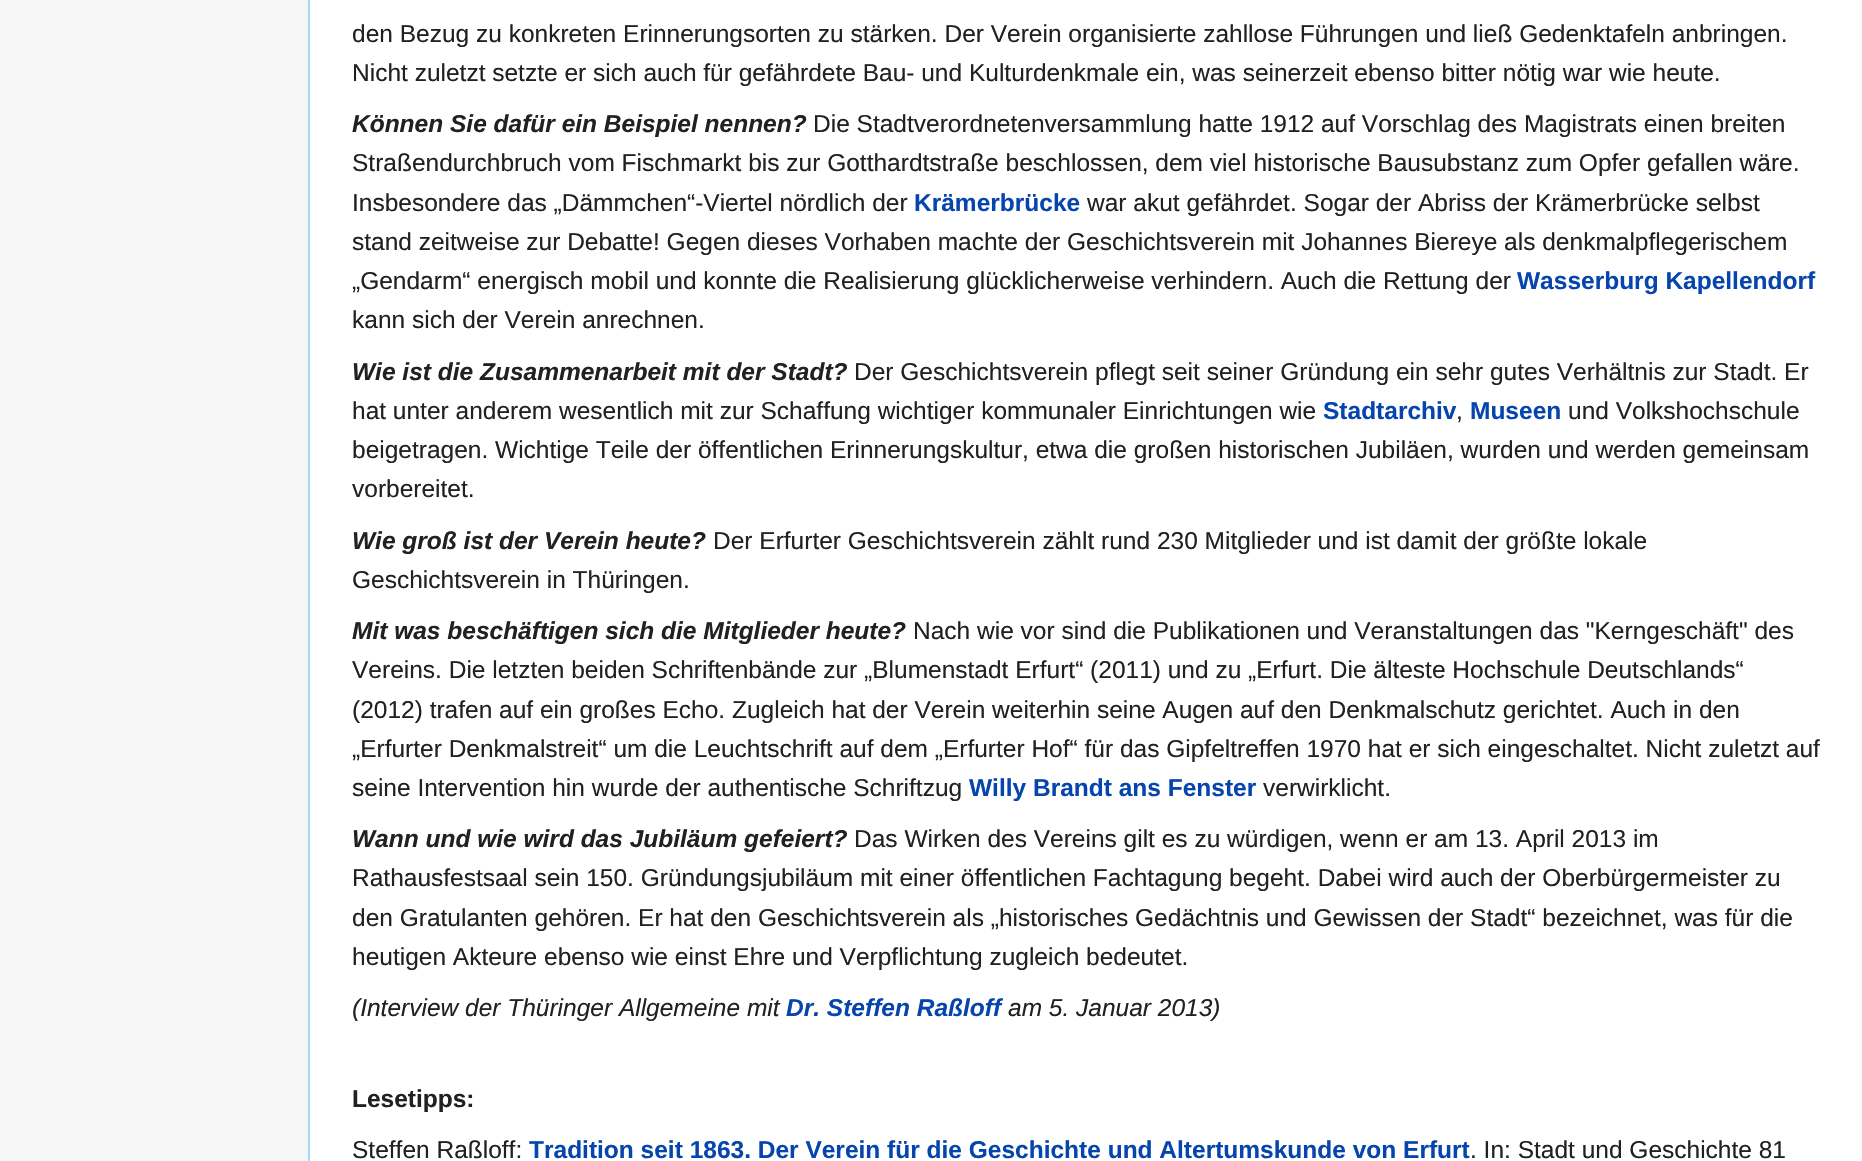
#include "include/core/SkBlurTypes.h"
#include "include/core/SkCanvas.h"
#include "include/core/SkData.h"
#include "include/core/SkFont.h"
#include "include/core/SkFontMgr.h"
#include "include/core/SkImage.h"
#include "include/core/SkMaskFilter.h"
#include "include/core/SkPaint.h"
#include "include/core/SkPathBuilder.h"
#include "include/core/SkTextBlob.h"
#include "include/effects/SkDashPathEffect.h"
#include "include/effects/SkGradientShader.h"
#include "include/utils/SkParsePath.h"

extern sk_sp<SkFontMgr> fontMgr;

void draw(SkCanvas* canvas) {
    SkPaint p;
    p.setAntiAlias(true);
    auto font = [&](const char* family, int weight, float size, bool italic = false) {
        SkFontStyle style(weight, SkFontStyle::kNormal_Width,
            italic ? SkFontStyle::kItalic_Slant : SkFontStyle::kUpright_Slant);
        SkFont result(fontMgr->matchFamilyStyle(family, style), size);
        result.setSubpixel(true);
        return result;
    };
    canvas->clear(0xFFF6F6F6);
    p.setColor(0xFFFFFFFF);
    canvas->drawRect(SkRect::MakeLTRB(310, 0, 1862, 1161), p);
    p.setColor(0xFFA7D7F9);
    canvas->drawRect(SkRect::MakeLTRB(308, 0, 310, 1161), p);
    auto font1 = font("Liberation Sans", 400, 24.5f);
    p.setColor(0xFF202122);
    canvas->drawString("den Bezug zu konkreten Erinnerungsorten zu stärken. Der Verein organisierte zahllose Führungen und ließ Gedenktafeln anbringen.", 352, 42, font1, p);
    canvas->drawString("Nicht zuletzt setzte er sich auch für gefährdete Bau- und Kulturdenkmale ein, was seinerzeit ebenso bitter nötig war wie heute.", 352, 81, font1, p);
    auto font2 = font("Liberation Sans", 700, 24.5f, true);
    canvas->drawString("Können Sie dafür ein Beispiel nennen?", 352, 132, font2, p);
    {
        const struct { const char* s; float x, y; } items[] = {
            {"Die Stadtverordnetenversammlung hatte 1912 auf Vorschlag des Magistrats einen breiten", 813, 132},
            {"Straßendurchbruch vom Fischmarkt bis zur Gotthardtstraße beschlossen, dem viel historische Bausubstanz zum Opfer gefallen wäre.", 352, 171},
            {"Insbesondere das „Dämmchen“-Viertel nördlich der", 352, 211},
        };
        for (auto [s, x, y] : items) {
            canvas->drawString(s, x, y, font1, p);
        }
    }
    auto font3 = font("Liberation Sans", 700, 24.5f);
    p.setColor(0xFF0645AD);
    canvas->drawString("Krämerbrücke", 914, 211, font3, p);
    p.setColor(0xFF202122);
    {
        const struct { const char* s; float x, y; } items[] = {
            {"war akut gefährdet. Sogar der Abriss der Krämerbrücke selbst", 1087, 211},
            {"stand zeitweise zur Debatte! Gegen dieses Vorhaben machte der Geschichtsverein mit Johannes Biereye als denkmalpflegerischem", 352, 250},
            {"„Gendarm“ energisch mobil und konnte die Realisierung glücklicherweise verhindern. Auch die Rettung der", 352, 289},
        };
        for (auto [s, x, y] : items) {
            canvas->drawString(s, x, y, font1, p);
        }
    }
    p.setColor(0xFF0645AD);
    canvas->drawString("Wasserburg Kapellendorf", 1517, 289, font3, p);
    p.setColor(0xFF202122);
    canvas->drawString("kann sich der Verein anrechnen.", 352, 328, font1, p);
    canvas->drawString("Wie ist die Zusammenarbeit mit der Stadt?", 352, 380, font2, p);
    canvas->drawString("Der Geschichtsverein pflegt seit seiner Gründung ein sehr gutes Verhältnis zur Stadt. Er", 854, 380, font1, p);
    canvas->drawString("hat unter anderem wesentlich mit zur Schaffung wichtiger kommunaler Einrichtungen wie", 352, 419, font1, p);
    p.setColor(0xFF0645AD);
    canvas->drawString("Stadtarchiv", 1323, 419, font3, p);
    p.setColor(0xFF202122);
    canvas->drawString(",", 1456, 419, font1, p);
    p.setColor(0xFF0645AD);
    canvas->drawString("Museen", 1470, 419, font3, p);
    p.setColor(0xFF202122);
    {
        const struct { const char* s; float x, y; } items[] = {
            {"und Volkshochschule", 1568, 419},
            {"beigetragen. Wichtige Teile der öffentlichen Erinnerungskultur, etwa die großen historischen Jubiläen, wurden und werden gemeinsam", 352, 458},
            {"vorbereitet.", 352, 497},
        };
        for (auto [s, x, y] : items) {
            canvas->drawString(s, x, y, font1, p);
        }
    }
    canvas->drawString("Wie groß ist der Verein heute?", 352, 549, font2, p);
    canvas->drawString("Der Erfurter Geschichtsverein zählt rund 230 Mitglieder und ist damit der größte lokale", 713, 549, font1, p);
    canvas->drawString("Geschichtsverein in Thüringen.", 352, 588, font1, p);
    canvas->drawString("Mit was beschäftigen sich die Mitglieder heute?", 352, 639, font2, p);
    {
        const struct { const char* s; float x, y; } items[] = {
            {"Nach wie vor sind die Publikationen und Veranstaltungen das \"Kerngeschäft\" des", 913, 639},
            {"Vereins. Die letzten beiden Schriftenbände zur „Blumenstadt Erfurt“ (2011) und zu „Erfurt. Die älteste Hochschule Deutschlands“", 352, 678},
            {"(2012) trafen auf ein großes Echo. Zugleich hat der Verein weiterhin seine Augen auf den Denkmalschutz gerichtet. Auch in den", 352, 718},
            {"„Erfurter Denkmalstreit“ um die Leuchtschrift auf dem „Erfurter Hof“ für das Gipfeltreffen 1970 hat er sich eingeschaltet. Nicht zuletzt auf", 352, 757},
            {"seine Intervention hin wurde der authentische Schriftzug", 352, 796},
        };
        for (auto [s, x, y] : items) {
            canvas->drawString(s, x, y, font1, p);
        }
    }
    p.setColor(0xFF0645AD);
    canvas->drawString("Willy Brandt ans Fenster", 969, 796, font3, p);
    p.setColor(0xFF202122);
    canvas->drawString("verwirklicht.", 1263, 796, font1, p);
    canvas->drawString("Wann und wie wird das Jubiläum gefeiert?", 352, 847, font2, p);
    {
        const struct { const char* s; float x, y; } items[] = {
            {"Das Wirken des Vereins gilt es zu würdigen, wenn er am 13. April 2013 im", 854, 847},
            {"Rathausfestsaal sein 150. Gründungsjubiläum mit einer öffentlichen Fachtagung begeht. Dabei wird auch der Oberbürgermeister zu", 352, 886},
            {"den Gratulanten gehören. Er hat den Geschichtsverein als „historisches Gedächtnis und Gewissen der Stadt“ bezeichnet, was für die", 352, 926},
            {"heutigen Akteure ebenso wie einst Ehre und Verpflichtung zugleich bedeutet.", 352, 965},
        };
        for (auto [s, x, y] : items) {
            canvas->drawString(s, x, y, font1, p);
        }
    }
    auto font4 = font("Liberation Sans", 400, 24.5f, true);
    canvas->drawString("(Interview der Thüringer Allgemeine mit", 352, 1016, font4, p);
    p.setColor(0xFF0645AD);
    canvas->drawString("Dr. Steffen Raßloff", 786, 1016, font2, p);
    p.setColor(0xFF202122);
    canvas->drawString("am 5. Januar 2013)", 1008, 1016, font4, p);
    canvas->drawString("Lesetipps:", 352, 1107, font3, p);
    canvas->drawString("Steffen Raßloff:", 352, 1158, font1, p);
    p.setColor(0xFF0645AD);
    canvas->drawString("Tradition seit 1863. Der Verein für die Geschichte und Altertumskunde von Erfurt", 529, 1158, font3, p);
    p.setColor(0xFF202122);
    canvas->drawString(". In: Stadt und Geschichte 81", 1470, 1158, font1, p);
}
